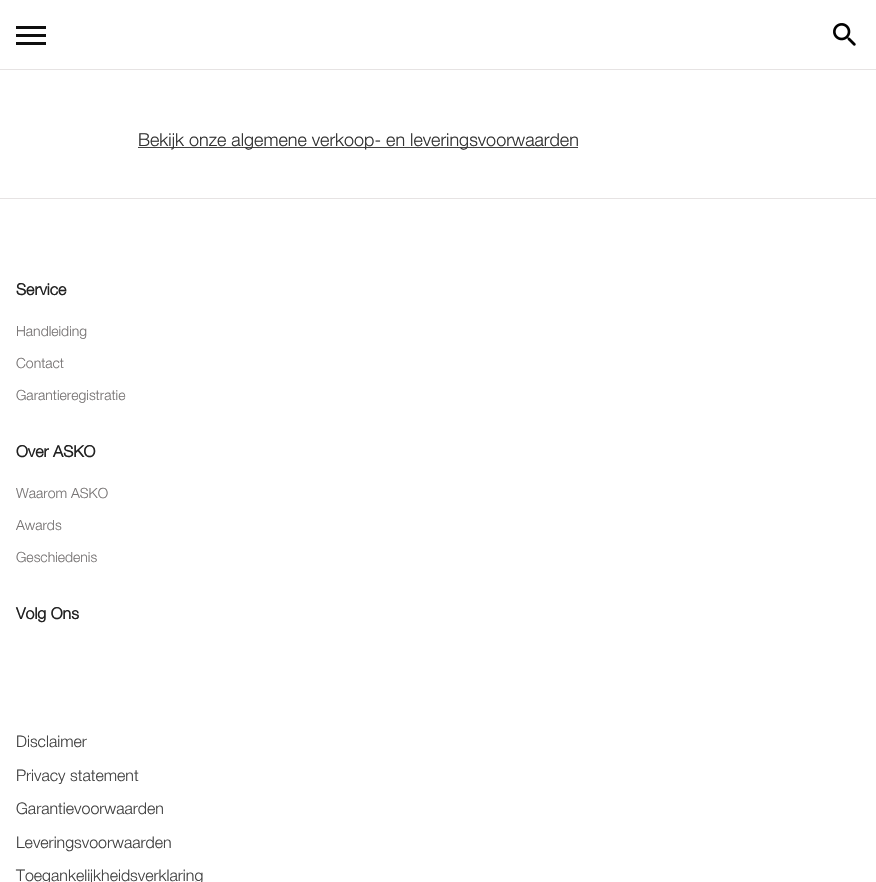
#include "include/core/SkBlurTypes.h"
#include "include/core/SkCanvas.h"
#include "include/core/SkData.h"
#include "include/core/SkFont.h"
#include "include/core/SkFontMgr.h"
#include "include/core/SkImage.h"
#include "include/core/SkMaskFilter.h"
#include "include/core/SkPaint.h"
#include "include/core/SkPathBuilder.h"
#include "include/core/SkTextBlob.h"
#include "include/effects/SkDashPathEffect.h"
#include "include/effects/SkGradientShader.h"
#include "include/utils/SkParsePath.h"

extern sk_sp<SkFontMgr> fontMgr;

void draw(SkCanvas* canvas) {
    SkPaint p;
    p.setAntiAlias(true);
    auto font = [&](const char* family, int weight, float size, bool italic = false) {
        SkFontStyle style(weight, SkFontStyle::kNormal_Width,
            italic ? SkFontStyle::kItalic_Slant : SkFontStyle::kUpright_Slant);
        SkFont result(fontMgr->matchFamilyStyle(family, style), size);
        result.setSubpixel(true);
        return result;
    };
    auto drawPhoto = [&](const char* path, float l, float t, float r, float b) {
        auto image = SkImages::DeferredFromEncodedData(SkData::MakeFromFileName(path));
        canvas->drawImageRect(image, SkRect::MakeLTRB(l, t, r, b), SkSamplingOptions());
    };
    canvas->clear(0xFFFFFFFF);
    {
        const struct { float l, t, r, b; SkColor color; } items[] = {
            {0, 69, 876, 70, 0xFFE6E3E3},
            {16, 34, 46, 37, 0xFF0E0E0E},
            {16, 26, 46, 29, 0xFF0E0E0E},
            {16, 42, 46, 45, 0xFF0E0E0E},
        };
        for (auto [l, t, r, b, color] : items) {
            p.setColor(color);
            canvas->drawRect(SkRect::MakeLTRB(l, t, r, b), p);
        }
    }
    drawPhoto("media/1.png", 833, 23, 856, 46);
    p.setColor(0xFF424242);
    canvas->drawRect(SkRect::MakeLTRB(138, 147, 578, 148), p);
    auto font1 = font("Helvetica Neue", 300, 18);
    p.setColor(0xFF333333);
    canvas->drawString("Bekijk onze algemene verkoop- en leveringsvoorwaarden", 138, 146, font1, p);
    p.setColor(0xFFE6E3E3);
    canvas->drawRect(SkRect::MakeLTRB(0, 198, 876, 199), p);
    auto font2 = font("Helvetica Neue", 700, 16);
    p.setColor(0xFF212121);
    canvas->drawString("Service", 16, 295, font2, p);
    auto font3 = font("Helvetica Neue", 300, 14);
    p.setColor(0xFF787575);
    {
        const struct { const char* s; float x, y; } items[] = {
            {"Handleiding", 16, 336},
            {"Contact", 16, 368},
            {"Garantieregistratie", 16, 400},
        };
        for (auto [s, x, y] : items) {
            canvas->drawString(s, x, y, font3, p);
        }
    }
    p.setColor(0xFF212121);
    canvas->drawString("Over ASKO", 16, 457, font2, p);
    p.setColor(0xFF787575);
    {
        const struct { const char* s; float x, y; } items[] = {
            {"Waarom ASKO", 16, 498},
            {"Awards", 16, 530},
            {"Geschiedenis", 16, 562},
        };
        for (auto [s, x, y] : items) {
            canvas->drawString(s, x, y, font3, p);
        }
    }
    p.setColor(0xFF212121);
    canvas->drawString("Volg Ons", 16, 619, font2, p);
    auto font4 = font("Helvetica Neue", 300, 16);
    p.setColor(0xFF424242);
    {
        const struct { const char* s; float x, y; } items[] = {
            {"Disclaimer", 16, 747},
            {"Privacy statement", 16, 781},
            {"Garantievoorwaarden", 16, 814},
            {"Leveringsvoorwaarden", 16, 848},
            {"Toegankelijkheidsverklaring", 16, 881},
        };
        for (auto [s, x, y] : items) {
            canvas->drawString(s, x, y, font4, p);
        }
    }
}
